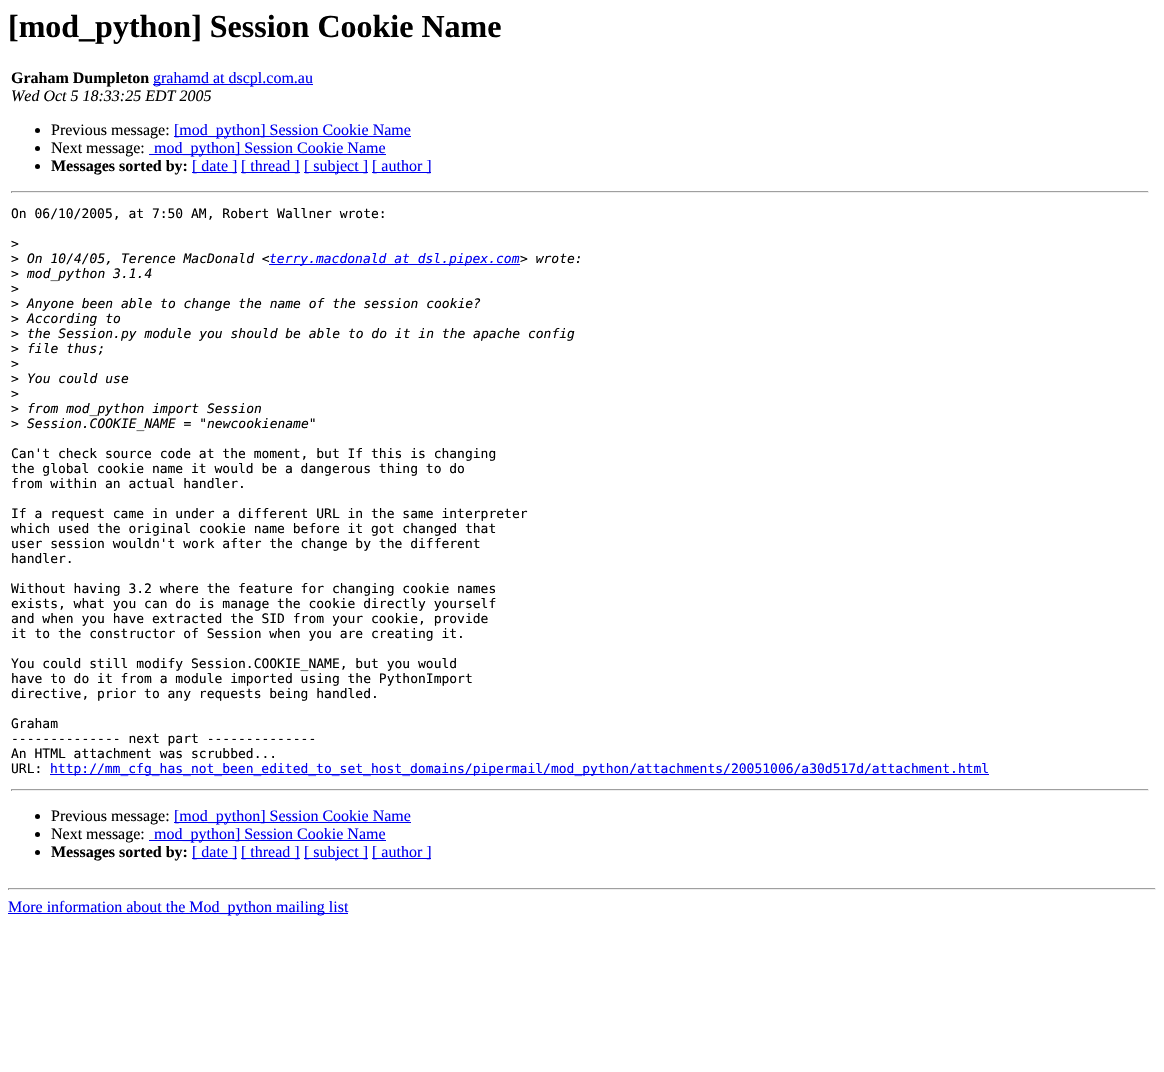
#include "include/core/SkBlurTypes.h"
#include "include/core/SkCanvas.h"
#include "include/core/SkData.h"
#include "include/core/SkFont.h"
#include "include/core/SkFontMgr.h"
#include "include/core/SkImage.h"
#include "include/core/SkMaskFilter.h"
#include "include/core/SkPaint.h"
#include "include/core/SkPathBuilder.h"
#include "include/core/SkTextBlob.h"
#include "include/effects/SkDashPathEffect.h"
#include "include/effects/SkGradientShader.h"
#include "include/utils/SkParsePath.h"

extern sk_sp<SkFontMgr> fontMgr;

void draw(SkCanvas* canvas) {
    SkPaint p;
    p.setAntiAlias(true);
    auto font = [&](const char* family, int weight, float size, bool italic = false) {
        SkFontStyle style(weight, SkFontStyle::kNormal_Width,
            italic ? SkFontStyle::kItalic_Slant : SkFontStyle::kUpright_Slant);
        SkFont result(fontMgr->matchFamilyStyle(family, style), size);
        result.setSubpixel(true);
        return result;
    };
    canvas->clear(0xFFFFFFFF);
    auto font1 = font("Liberation Serif", 700, 32);
    p.setColor(0xFF000000);
    canvas->drawString("[mod_python] Session Cookie Name", 8, 37, font1, p);
    auto font2 = font("Liberation Serif", 700, 16);
    canvas->drawString("Graham Dumpleton", 11, 83, font2, p);
    p.setColor(0xFF0000EE);
    canvas->drawRect(SkRect::MakeLTRB(153, 84, 313, 85), p);
    auto font3 = font("Liberation Serif", 400, 16);
    canvas->drawString("grahamd at dscpl.com.au", 153, 83, font3, p);
    auto font4 = font("Liberation Serif", 400, 16, true);
    p.setColor(0xFF000000);
    canvas->drawString("Wed Oct 5 18:33:25 EDT 2005", 11, 101, font4, p);
    canvas->drawCircle(37.5f, 130.5f, 2.5f, p);
    canvas->drawString("Previous message:", 51, 135, font3, p);
    p.setColor(0xFF0000EE);
    canvas->drawRect(SkRect::MakeLTRB(174, 136, 411, 137), p);
    canvas->drawString("[mod_python] Session Cookie Name", 174, 135, font3, p);
    p.setColor(0xFF000000);
    canvas->drawCircle(37.5f, 148.5f, 2.5f, p);
    canvas->drawString("Next message:", 51, 153, font3, p);
    p.setColor(0xFF0000EE);
    canvas->drawRect(SkRect::MakeLTRB(149, 154, 386, 155), p);
    canvas->drawString("mod_python] Session Cookie Name", 154, 153, font3, p);
    p.setColor(0xFF000000);
    canvas->drawCircle(37.5f, 166.5f, 2.5f, p);
    canvas->drawString("Messages sorted by:", 51, 171, font2, p);
    p.setColor(0xFF0000EE);
    canvas->drawRect(SkRect::MakeLTRB(192, 172, 237, 173), p);
    canvas->drawString("[ date ]", 192, 171, font3, p);
    canvas->drawRect(SkRect::MakeLTRB(241, 172, 300, 173), p);
    canvas->drawString("[ thread ]", 241, 171, font3, p);
    canvas->drawRect(SkRect::MakeLTRB(304, 172, 368, 173), p);
    canvas->drawString("[ subject ]", 304, 171, font3, p);
    canvas->drawRect(SkRect::MakeLTRB(372, 172, 431, 173), p);
    canvas->drawString("[ author ]", 372, 171, font3, p);
    {
        const struct { float l, t, r, b; SkColor color; } items[] = {
            {11, 191, 1149, 192, 0xFF9F9F9F},
            {1148, 191, 1149, 193, 0xFFEEEEEE},
            {11, 192, 1149, 193, 0xFFEEEEEE},
            {11, 191, 12, 193, 0xFF9F9F9F},
        };
        for (auto [l, t, r, b, color] : items) {
            p.setColor(color);
            canvas->drawRect(SkRect::MakeLTRB(l, t, r, b), p);
        }
    }
    auto font5 = font("DejaVu Sans Mono", 400, 13);
    p.setColor(0xFF000000);
    {
        const struct { const char* s; float x, y; } items[] = {
            {"On 06/10/2005, at 7:50 AM, Robert Wallner wrote:", 11, 218},
            {">", 11, 248},
            {">", 11, 263},
        };
        for (auto [s, x, y] : items) {
            canvas->drawString(s, x, y, font5, p);
        }
    }
    auto font6 = font("DejaVu Sans Mono", 400, 13, true);
    canvas->drawString("On 10/4/05, Terence MacDonald <", 27, 263, font6, p);
    p.setColor(0xFF0000EE);
    canvas->drawRect(SkRect::MakeLTRB(269, 264, 520, 265), p);
    canvas->drawString("terry.macdonald at dsl.pipex.com", 269, 263, font6, p);
    p.setColor(0xFF000000);
    canvas->drawString("> wrote:", 520, 263, font6, p);
    canvas->drawString(">", 11, 278, font5, p);
    canvas->drawString("mod_python 3.1.4", 27, 278, font6, p);
    canvas->drawString(">", 11, 293, font5, p);
    canvas->drawString(">", 11, 308, font5, p);
    canvas->drawString("Anyone been able to change the name of the session cookie?", 27, 308, font6, p);
    canvas->drawString(">", 11, 323, font5, p);
    canvas->drawString("According to", 27, 323, font6, p);
    canvas->drawString(">", 11, 338, font5, p);
    canvas->drawString("the Session.py module you should be able to do it in the apache config", 27, 338, font6, p);
    canvas->drawString(">", 11, 353, font5, p);
    canvas->drawString("file thus;", 27, 353, font6, p);
    canvas->drawString(">", 11, 368, font5, p);
    canvas->drawString(">", 11, 383, font5, p);
    canvas->drawString("You could use", 27, 383, font6, p);
    canvas->drawString(">", 11, 398, font5, p);
    canvas->drawString(">", 11, 413, font5, p);
    canvas->drawString("from mod_python import Session", 27, 413, font6, p);
    canvas->drawString(">", 11, 428, font5, p);
    canvas->drawString("Session.COOKIE_NAME = \"newcookiename\"", 27, 428, font6, p);
    {
        const struct { const char* s; float x, y; } items[] = {
            {"Can't check source code at the moment, but If this is changing", 11, 458},
            {"the global cookie name it would be a dangerous thing to do", 11, 473},
            {"from within an actual handler.", 11, 488},
            {"If a request came in under a different URL in the same interpreter", 11, 518},
            {"which used the original cookie name before it got changed that", 11, 533},
            {"user session wouldn't work after the change by the different", 11, 548},
            {"handler.", 11, 563},
            {"Without having 3.2 where the feature for changing cookie names", 11, 593},
            {"exists, what you can do is manage the cookie directly yourself", 11, 608},
            {"and when you have extracted the SID from your cookie, provide", 11, 623},
            {"it to the constructor of Session when you are creating it.", 11, 638},
            {"You could still modify Session.COOKIE_NAME, but you would", 11, 668},
            {"have to do it from a module imported using the PythonImport", 11, 683},
            {"directive, prior to any requests being handled.", 11, 698},
            {"Graham", 11, 728},
            {"-------------- next part --------------", 11, 743},
            {"An HTML attachment was scrubbed...", 11, 758},
            {"URL:", 11, 773},
        };
        for (auto [s, x, y] : items) {
            canvas->drawString(s, x, y, font5, p);
        }
    }
    p.setColor(0xFF0000EE);
    canvas->drawRect(SkRect::MakeLTRB(50, 774, 989, 775), p);
    canvas->drawString("http://mm_cfg_has_not_been_edited_to_set_host_domains/pipermail/mod_python/attachments/20051006/a30d517d/attachment.html", 50, 773, font5, p);
    {
        const struct { float l, t, r, b; SkColor color; } items[] = {
            {11, 789, 1149, 790, 0xFF9F9F9F},
            {1148, 789, 1149, 791, 0xFFEEEEEE},
            {11, 790, 1149, 791, 0xFFEEEEEE},
            {11, 789, 12, 791, 0xFF9F9F9F},
        };
        for (auto [l, t, r, b, color] : items) {
            p.setColor(color);
            canvas->drawRect(SkRect::MakeLTRB(l, t, r, b), p);
        }
    }
    p.setColor(0xFF000000);
    canvas->drawCircle(37.5f, 816.5f, 2.5f, p);
    canvas->drawString("Previous message:", 51, 821, font3, p);
    p.setColor(0xFF0000EE);
    canvas->drawRect(SkRect::MakeLTRB(174, 822, 411, 823), p);
    canvas->drawString("[mod_python] Session Cookie Name", 174, 821, font3, p);
    p.setColor(0xFF000000);
    canvas->drawCircle(37.5f, 834.5f, 2.5f, p);
    canvas->drawString("Next message:", 51, 839, font3, p);
    p.setColor(0xFF0000EE);
    canvas->drawRect(SkRect::MakeLTRB(149, 840, 386, 841), p);
    canvas->drawString("mod_python] Session Cookie Name", 154, 839, font3, p);
    p.setColor(0xFF000000);
    canvas->drawCircle(37.5f, 852.5f, 2.5f, p);
    canvas->drawString("Messages sorted by:", 51, 857, font2, p);
    p.setColor(0xFF0000EE);
    canvas->drawRect(SkRect::MakeLTRB(192, 858, 237, 859), p);
    canvas->drawString("[ date ]", 192, 857, font3, p);
    canvas->drawRect(SkRect::MakeLTRB(241, 858, 300, 859), p);
    canvas->drawString("[ thread ]", 241, 857, font3, p);
    canvas->drawRect(SkRect::MakeLTRB(304, 858, 368, 859), p);
    canvas->drawString("[ subject ]", 304, 857, font3, p);
    canvas->drawRect(SkRect::MakeLTRB(372, 858, 431, 859), p);
    canvas->drawString("[ author ]", 372, 857, font3, p);
    {
        const struct { float l, t, r, b; SkColor color; } items[] = {
            {8, 888, 1156, 889, 0xFF9F9F9F},
            {1155, 888, 1156, 890, 0xFFEEEEEE},
            {8, 889, 1156, 890, 0xFFEEEEEE},
            {8, 888, 9, 890, 0xFF9F9F9F},
            {8, 913, 348, 914, 0xFF0000EE},
        };
        for (auto [l, t, r, b, color] : items) {
            p.setColor(color);
            canvas->drawRect(SkRect::MakeLTRB(l, t, r, b), p);
        }
    }
    canvas->drawString("More information about the Mod_python mailing list", 8, 912, font3, p);
}
